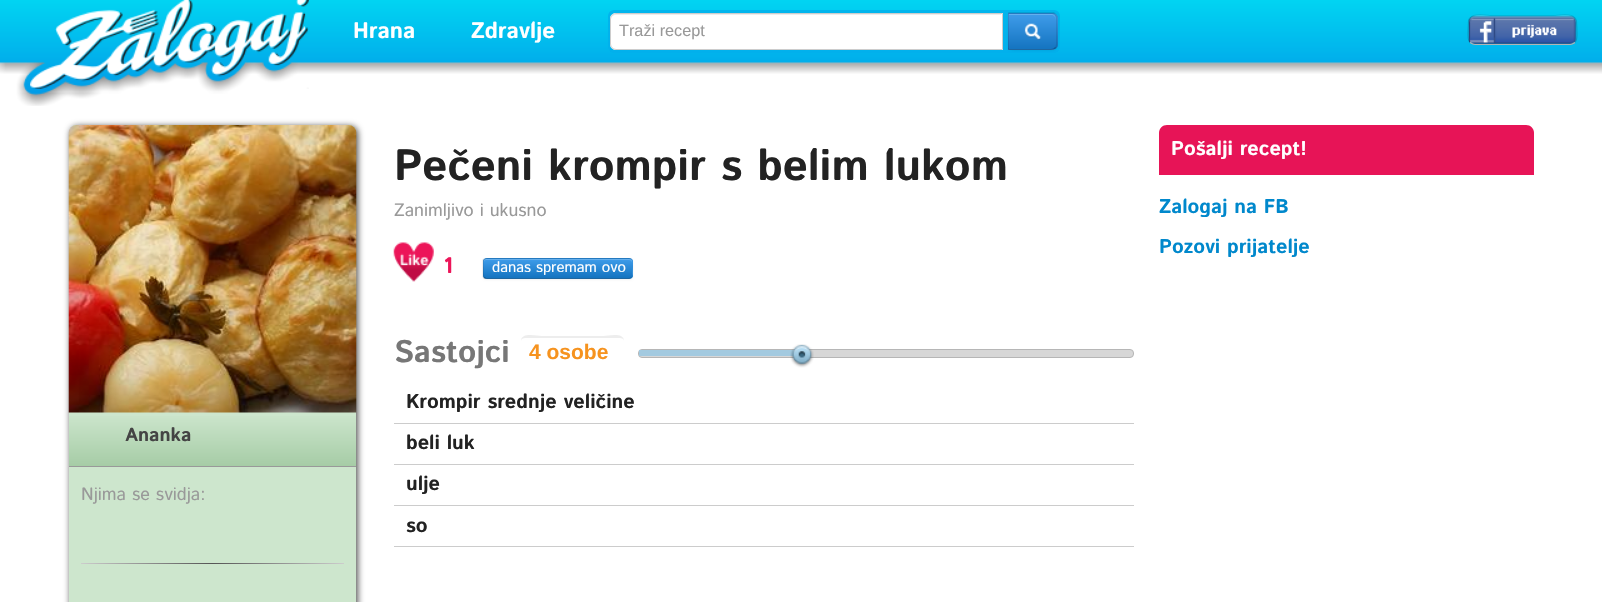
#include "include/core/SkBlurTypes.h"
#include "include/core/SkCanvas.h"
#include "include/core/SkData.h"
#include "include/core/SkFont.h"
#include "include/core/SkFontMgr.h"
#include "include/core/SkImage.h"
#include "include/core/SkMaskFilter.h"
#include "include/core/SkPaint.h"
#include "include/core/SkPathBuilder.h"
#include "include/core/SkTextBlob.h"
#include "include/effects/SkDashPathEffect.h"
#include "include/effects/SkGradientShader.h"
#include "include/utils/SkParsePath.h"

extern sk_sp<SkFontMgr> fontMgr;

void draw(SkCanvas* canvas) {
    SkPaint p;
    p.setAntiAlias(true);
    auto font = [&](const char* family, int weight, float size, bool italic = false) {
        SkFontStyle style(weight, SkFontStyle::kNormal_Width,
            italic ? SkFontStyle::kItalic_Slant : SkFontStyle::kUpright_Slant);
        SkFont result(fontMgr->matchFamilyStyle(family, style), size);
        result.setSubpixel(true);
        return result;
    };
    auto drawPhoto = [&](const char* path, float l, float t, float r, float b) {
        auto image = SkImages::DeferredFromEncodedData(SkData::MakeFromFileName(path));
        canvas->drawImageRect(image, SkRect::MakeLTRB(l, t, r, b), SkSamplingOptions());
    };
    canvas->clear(0xFFFFFFFF);
    drawPhoto("media/1.png", 0, 0, 1602, 106);
    drawPhoto("media/2.png", 30, 0, 309, 89);
    auto font1 = font("Istok Web", 700, 22.5f);
    p.setColor(0xFFFFFFFF);
    canvas->drawString("Hrana", 353, 38, font1, p);
    canvas->drawString("Zdravlje", 471, 38, font1, p);
    p.setColor(0xCF01AFEB);
    canvas->drawRoundRect(SkRect::MakeLTRB(608, 10, 1060, 53), 6, 6, p);
    p.setColor(0xFFFFFFFF);
    canvas->drawPath(SkPathBuilder().moveTo(616, 13).lineTo(1003, 13).lineTo(1003, 50).lineTo(616, 50).cubicTo(612.5f, 50, 610, 47.5f, 610, 44).lineTo(610, 19).cubicTo(610, 15.5f, 612.5f, 13, 616, 13).close().detach(), p);
    p.setColor(0xFFEDEDED);
    canvas->drawPath(SkPathBuilder().moveTo(616, 15).lineTo(1001, 15).lineTo(1001, 14).lineTo(616, 14).cubicTo(613, 14, 611, 17, 611, 20).cubicTo(611, 17, 613, 15, 616, 15).close().detach(), p);
    p.setStyle(SkPaint::kStroke_Style);
    p.setStrokeWidth(1);
    p.setColor(0xFFCCCCCC);
    canvas->drawPath(SkPathBuilder().moveTo(616, 13.5f).lineTo(1002.5f, 13.5f).lineTo(1002.5f, 49.5f).lineTo(616, 49.5f).cubicTo(613, 49.5f, 610.5f, 47, 610.5f, 44).lineTo(610.5f, 19).cubicTo(610.5f, 16, 613, 13.5f, 616, 13.5f).close().detach(), p);
    auto font2 = font("Liberation Sans", 400, 16.25f);
    p.setStyle(SkPaint::kFill_Style);
    p.setColor(0xFF999999);
    canvas->drawString("Traži recept", 619, 36, font2, p);
    p.setColor(0x0D000000);
    p.setMaskFilter(SkMaskFilter::MakeBlur(kNormal_SkBlurStyle, 1));
    canvas->drawRoundRect(SkRect::MakeLTRB(1008, 14, 1058, 51), 6, 6, p);
    p.setMaskFilter(nullptr);
    p.setColor(0xFF2988D5);
    canvas->drawPath(SkPathBuilder().moveTo(1008, 13).lineTo(1052, 13).cubicTo(1055.5f, 13, 1058, 15.5f, 1058, 19).lineTo(1058, 44).cubicTo(1058, 47.5f, 1055.5f, 50, 1052, 50).lineTo(1008, 50).close().detach(), p);
    canvas->save();
    canvas->clipPath(SkPathBuilder().moveTo(1008, 13).lineTo(1052, 13).cubicTo(1055.5f, 13, 1058, 15.5f, 1058, 19).lineTo(1058, 44).cubicTo(1058, 47.5f, 1055.5f, 50, 1052, 50).lineTo(1008, 50).close().detach(), true);
    {
        const SkColor colors[] = {0xFF3F9CEA, 0xFF1474C0};
        const float stops[] = {0, 1};
        const SkPoint ends[] = {{1033, 14}, {1033, 49}};
        p.setShader(SkGradientShader::MakeLinear(ends, colors, stops, 2, SkTileMode::kClamp));
        p.setAlpha(255);
    }
    canvas->drawRect(SkRect::MakeLTRB(1008, 14, 1058, 49), p);
    canvas->restore();
    p.setShader(nullptr);
    p.setColor(0xFF64AFED);
    canvas->drawPath(SkPathBuilder().moveTo(1009, 15).lineTo(1051, 15).cubicTo(1054, 15, 1056, 17, 1056, 20).lineTo(1056, 19).cubicTo(1056, 16, 1054, 14, 1051, 14).lineTo(1009, 14).close().detach(), p);
    p.setColor(0x1A000000);
    canvas->drawPath(SkPathBuilder().moveTo(1009, 14).lineTo(1008, 12).lineTo(1054, 12).lineTo(1056, 14).lineTo(1055, 15).cubicTo(1054, 14, 1052, 14, 1051, 14).close().detach(), p);
    canvas->drawPath(SkPathBuilder().moveTo(1057.5f, 46).lineTo(1056, 48.5f).lineTo(1055, 47.5f).cubicTo(1055.5f, 46.5f, 1056, 45.5f, 1056, 44).lineTo(1056, 19).cubicTo(1056, 17.5f, 1055.5f, 16, 1054.5f, 15.5f).lineTo(1056, 14).lineTo(1057.5f, 16.5f).close().detach(), p);
    p.setColor(0x40000000);
    canvas->drawPath(SkPathBuilder().moveTo(1008, 50).lineTo(1051, 50).cubicTo(1053, 50, 1055, 49, 1056, 48).lineTo(1055, 47).cubicTo(1054, 48, 1053, 49, 1051, 49).lineTo(1009, 49).lineTo(1009, 48).close().detach(), p);
    p.setColor(0x1A000000);
    canvas->drawPath(SkPathBuilder().moveTo(1009, 14).lineTo(1009, 48.5f).lineTo(1008, 49.5f).lineTo(1008, 13).close().detach(), p);
    drawPhoto("media/3.png", 1024, 23, 1042, 40);
    drawPhoto("media/4.png", 1468, 16, 1577, 44);
    p.setColor(0x33FFFFFF);
    canvas->drawPath(SkPathBuilder().moveTo(1475, 18).lineTo(1570, 18).cubicTo(1573, 18, 1576, 20, 1576, 24).cubicTo(1576, 12, 1563, 16, 1554, 16).lineTo(1491, 16).cubicTo(1482, 16, 1469, 12, 1469, 24).cubicTo(1469, 20, 1472, 18, 1475, 18).close().detach(), p);
    p.setStyle(SkPaint::kStroke_Style);
    p.setStrokeWidth(1.2f);
    p.setColor(0xFFB3B3B3);
    canvas->drawPath(SkPathBuilder().moveTo(1575, 42.5f).cubicTo(1573.5f, 43.5f, 1572, 44.5f, 1570, 44.5f).lineTo(1475, 44.5f).cubicTo(1473, 44.5f, 1471.5f, 43.5f, 1470, 42.5f).detach(), p);
    p.setColor(0x1A000000);
    canvas->drawPath(SkPathBuilder().moveTo(1470, 42.5f).cubicTo(1466.5f, 39, 1468, 32, 1468, 27.5f).lineTo(1468.5f, 21).cubicTo(1470, 12, 1486.5f, 15.5f, 1491, 15.5f).lineTo(1554, 15.5f).cubicTo(1558.5f, 15.5f, 1575, 12, 1576.5f, 21).lineTo(1577, 27.5f).cubicTo(1577, 32, 1578.5f, 39, 1575, 42.5f).detach(), p);
    p.setStyle(SkPaint::kFill_Style);
    p.setColor(0xFF555555);
    p.setMaskFilter(SkMaskFilter::MakeBlur(kNormal_SkBlurStyle, 3));
    canvas->drawRoundRect(SkRect::MakeLTRB(70, 126, 358, 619), 8, 8, p);
    p.setMaskFilter(nullptr);
    p.setColor(0xFFCDE6CD);
    canvas->drawRoundRect(SkRect::MakeLTRB(69, 125, 356, 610), 8, 8, p);
    canvas->drawPath(SkPathBuilder().moveTo(77, 125).lineTo(348, 125).cubicTo(352.5f, 125, 356, 128.5f, 356, 133).lineTo(356, 413).lineTo(69, 413).lineTo(69, 133).cubicTo(69, 128.5f, 72.5f, 125, 77, 125).close().detach(), p);
    drawPhoto("media/5.png", 68, 125, 357, 413);
    {
        const SkColor colors[] = {0xFFCDE6CD, 0xFFA6CCA6};
        const float stops[] = {0, 1};
        const SkPoint ends[] = {{213, 413}, {213, 466}};
        p.setShader(SkGradientShader::MakeLinear(ends, colors, stops, 2, SkTileMode::kClamp));
        p.setAlpha(255);
    }
    canvas->drawRect(SkRect::MakeLTRB(69, 416, 356, 466), p);
    p.setShader(nullptr);
    p.setColor(0xFF999999);
    canvas->drawRect(SkRect::MakeLTRB(69, 466, 356, 467), p);
    auto font3 = font("Istok Web", 700, 19);
    p.setColor(0xFF444444);
    canvas->drawString("Ananka", 125, 441, font3, p);
    auto font4 = font("Istok Web", 400, 18);
    p.setColor(0xFF999999);
    canvas->drawString("Njima se svidja:", 81, 500, font4, p);
    {
        const SkColor colors[] = {0xFFCCCCCC, 0xFF555555, 0xFFCCCCCC};
        const float stops[] = {0, 0.5f, 1};
        const SkPoint ends[] = {{81, 563}, {344, 563}};
        p.setShader(SkGradientShader::MakeLinear(ends, colors, stops, 3, SkTileMode::kClamp));
        p.setAlpha(255);
    }
    canvas->drawRect(SkRect::MakeLTRB(81, 563, 344, 564), p);
    auto font5 = font("Istok Web", 700, 43.75f);
    p.setShader(nullptr);
    p.setColor(0xFF222222);
    canvas->drawString("Pečeni krompir s belim lukom", 394, 180, font5, p);
    p.setColor(0xFF999999);
    canvas->drawString("Zanimljivo i ukusno", 394, 216, font4, p);
    drawPhoto("media/6.png", 393, 242, 434, 282);
    p.setColor(0xFFEC1559);
    canvas->drawString("1", 443, 273, font1, p);
    p.setColor(0x0D000000);
    p.setMaskFilter(SkMaskFilter::MakeBlur(kNormal_SkBlurStyle, 1));
    canvas->drawRoundRect(SkRect::MakeLTRB(483, 259, 633, 280), 4, 4, p);
    p.setMaskFilter(nullptr);
    p.setColor(0xFF2988D5);
    canvas->drawRoundRect(SkRect::MakeLTRB(483, 258, 633, 279), 4, 4, p);
    canvas->save();
    canvas->clipPath(SkPathBuilder().moveTo(487, 258).lineTo(629, 258).cubicTo(631, 258, 633, 260, 633, 262).lineTo(633, 275).cubicTo(633, 277, 631, 279, 629, 279).lineTo(487, 279).cubicTo(485, 279, 483, 277, 483, 275).lineTo(483, 262).cubicTo(483, 260, 485, 258, 487, 258).close().detach(), true);
    {
        const SkColor colors[] = {0xFF3F9CEA, 0xFF1474C0};
        const float stops[] = {0, 1};
        const SkPoint ends[] = {{558, 259}, {558, 278}};
        p.setShader(SkGradientShader::MakeLinear(ends, colors, stops, 2, SkTileMode::kClamp));
        p.setAlpha(255);
    }
    canvas->drawRect(SkRect::MakeLTRB(483, 259, 633, 278), p);
    canvas->restore();
    p.setShader(nullptr);
    p.setColor(0xFF64AFED);
    canvas->drawPath(SkPathBuilder().moveTo(486, 260).lineTo(629, 260).cubicTo(633, 260, 632, 264, 632, 267).lineTo(632, 276).cubicTo(633, 275, 632, 268, 632, 266).cubicTo(632, 262, 633, 259, 629, 259).lineTo(486, 259).cubicTo(483, 259, 484, 264, 484, 266).lineTo(484, 276).lineTo(484, 267).cubicTo(484, 265, 483, 260, 486, 260).close().detach(), p);
    p.setColor(0x1A000000);
    canvas->drawPath(SkPathBuilder().moveTo(486, 258).lineTo(629, 258).cubicTo(631, 258, 632, 259, 632, 261).cubicTo(632, 260, 631, 259, 629, 259).lineTo(486, 259).lineTo(485, 260).lineTo(484, 259).close().detach(), p);
    p.setColor(0x40000000);
    canvas->drawPath(SkPathBuilder().moveTo(485, 279).lineTo(483, 278).lineTo(485, 277).lineTo(486, 278).lineTo(629, 278).cubicTo(631, 278, 632, 277, 632, 275).cubicTo(632, 277, 631, 278, 630, 279).close().detach(), p);
    p.setColor(0x1A000000);
    canvas->drawPath(SkPathBuilder().moveTo(484.5f, 276.5f).lineTo(483.5f, 278).lineTo(482.5f, 277).lineTo(482.5f, 259.5f).lineTo(483.5f, 258.5f).lineTo(484.5f, 259.5f).cubicTo(483.5f, 261, 484, 266, 484, 268).cubicTo(484, 270.5f, 483.5f, 274.5f, 484.5f, 276.5f).close().detach(), p);
    auto font6 = font("Istok Web", 400, 15);
    p.setColor(0xFFFFFFFF);
    canvas->drawString("danas spremam ovo", 492, 272, font6, p);
    auto font7 = font("Istok Web", 700, 31);
    p.setColor(0xFF777777);
    canvas->drawString("Sastojci", 394, 362, font7, p);
    p.setColor(0xFFEDEDED);
    canvas->drawPath(SkPathBuilder().moveTo(525, 338).lineTo(620, 338).cubicTo(622, 338, 624, 339, 624, 341).cubicTo(624, 332, 608, 336, 604, 336).lineTo(541, 336).cubicTo(537, 336, 521, 332, 521, 341).cubicTo(521, 339, 523, 338, 525, 338).close().detach(), p);
    auto font8 = font("Liberation Sans", 700, 21);
    p.setColor(0xFFF6931F);
    canvas->drawString("4 osobe", 529, 359, font8, p);
    p.setColor(0xFFD7D7D7);
    canvas->drawRoundRect(SkRect::MakeLTRB(638.5f, 349.5f, 1133.5f, 357.5f), 3.5f, 3.5f, p);
    p.setStyle(SkPaint::kStroke_Style);
    p.setStrokeWidth(1);
    p.setColor(0xFFB6B6B6);
    canvas->drawRoundRect(SkRect::MakeLTRB(638.5f, 349.5f, 1133.5f, 357.5f), 3.5f, 3.5f, p);
    p.setStyle(SkPaint::kFill_Style);
    p.setColor(0xFFA3CAE0);
    canvas->drawRect(SkRect::MakeLTRB(639, 350, 795, 356), p);
    drawPhoto("media/7.png", 790, 344, 814, 368);
    p.setColor(0xFFCCCCCC);
    canvas->drawRect(SkRect::MakeLTRB(394, 423, 1134, 424), p);
    auto font9 = font("Istok Web", 700, 20);
    p.setColor(0xFF222222);
    canvas->drawString("Krompir srednje veličine", 406, 408, font9, p);
    p.setColor(0xFFCCCCCC);
    canvas->drawRect(SkRect::MakeLTRB(394, 464, 1134, 465), p);
    p.setColor(0xFF222222);
    canvas->drawString("beli luk", 406, 449, font9, p);
    p.setColor(0xFFCCCCCC);
    canvas->drawRect(SkRect::MakeLTRB(394, 505, 1134, 506), p);
    p.setColor(0xFF222222);
    canvas->drawString("ulje", 406, 490, font9, p);
    p.setColor(0xFFCCCCCC);
    canvas->drawRect(SkRect::MakeLTRB(394, 546, 1134, 547), p);
    p.setColor(0xFF222222);
    canvas->drawString("so", 406, 532, font9, p);
    p.setColor(0xFFE71457);
    canvas->drawPath(SkPathBuilder().moveTo(1167, 125).lineTo(1526, 125).cubicTo(1530.5f, 125, 1534, 128.5f, 1534, 133).lineTo(1534, 175).lineTo(1159, 175).lineTo(1159, 133).cubicTo(1159, 128.5f, 1162.5f, 125, 1167, 125).close().detach(), p);
    p.setColor(0xFFFFFFFF);
    canvas->drawString("Pošalji recept!", 1171, 155, font9, p);
    p.setColor(0xFF0088CC);
    canvas->drawString("Zalogaj na FB", 1159, 213, font9, p);
    canvas->drawString("Pozovi prijatelje", 1159, 253, font9, p);
}
